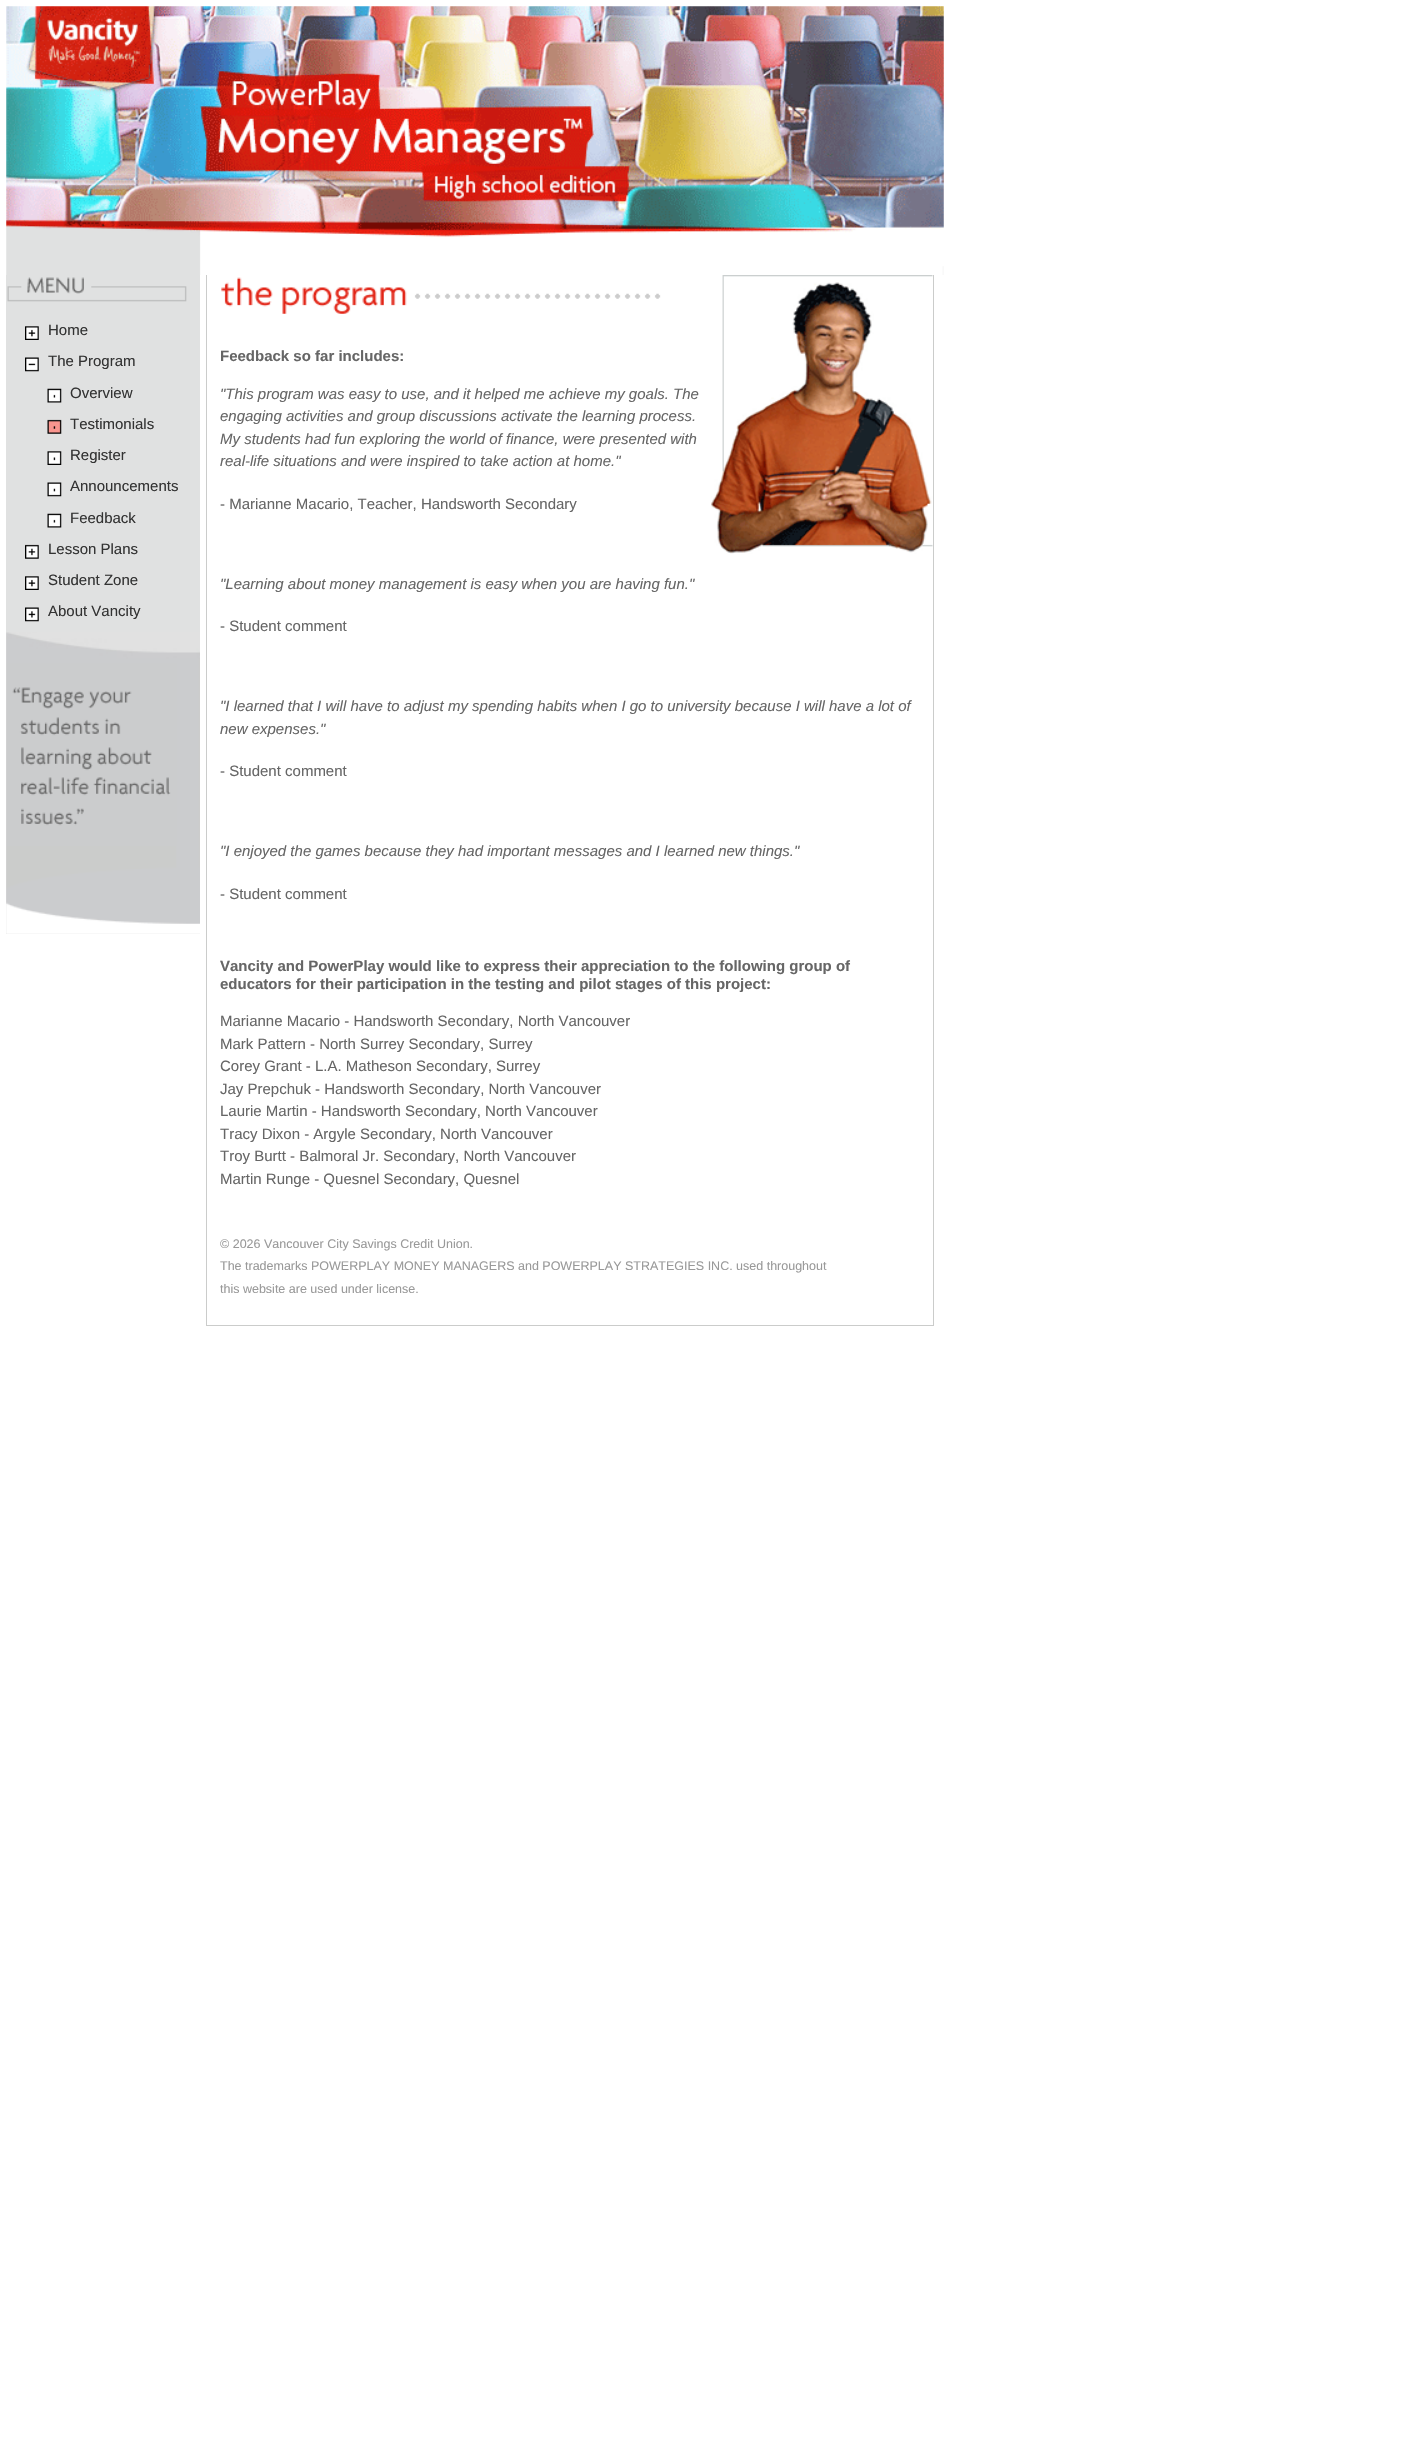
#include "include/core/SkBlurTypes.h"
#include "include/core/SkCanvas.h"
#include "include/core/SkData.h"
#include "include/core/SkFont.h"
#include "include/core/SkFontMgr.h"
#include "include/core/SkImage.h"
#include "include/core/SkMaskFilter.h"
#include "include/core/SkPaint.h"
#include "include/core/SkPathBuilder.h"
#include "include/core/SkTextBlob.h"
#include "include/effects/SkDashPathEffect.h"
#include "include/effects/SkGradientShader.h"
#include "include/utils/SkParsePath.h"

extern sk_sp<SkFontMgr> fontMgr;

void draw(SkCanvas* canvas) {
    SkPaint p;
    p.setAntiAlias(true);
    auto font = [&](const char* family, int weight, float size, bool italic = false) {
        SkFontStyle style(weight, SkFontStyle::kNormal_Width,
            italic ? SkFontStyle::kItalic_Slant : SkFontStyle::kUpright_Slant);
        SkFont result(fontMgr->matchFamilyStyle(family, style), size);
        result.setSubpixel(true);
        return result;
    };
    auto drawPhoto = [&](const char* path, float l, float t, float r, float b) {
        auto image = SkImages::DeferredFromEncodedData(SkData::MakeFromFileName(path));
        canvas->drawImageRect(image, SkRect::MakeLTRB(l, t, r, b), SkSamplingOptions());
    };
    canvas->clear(0xFFFFFFFF);
    drawPhoto("media/1.png", 6, 6, 944, 275);
    p.setColor(0xFFE0E1E1);
    canvas->drawRect(SkRect::MakeLTRB(6, 275, 200, 934), p);
    drawPhoto("media/2.png", 7, 277, 187, 302);
    drawPhoto("media/3.png", 25, 326, 39, 340);
    auto font1 = font("Liberation Sans", 400, 15);
    p.setColor(0xFF333333);
    canvas->drawString("Home", 48, 335, font1, p);
    drawPhoto("media/4.png", 25, 357, 39, 372);
    canvas->drawString("The Program", 48, 366, font1, p);
    drawPhoto("media/5.png", 47, 388, 62, 403);
    canvas->drawString("Overview", 70, 398, font1, p);
    drawPhoto("media/6.png", 47, 419, 62, 434);
    canvas->drawString("Testimonials", 70, 429, font1, p);
    drawPhoto("media/7.png", 47, 451, 62, 465);
    canvas->drawString("Register", 70, 460, font1, p);
    drawPhoto("media/8.png", 47, 482, 62, 497);
    canvas->drawString("Announcements", 70, 491, font1, p);
    drawPhoto("media/5.png", 47, 513, 62, 528);
    canvas->drawString("Feedback", 70, 523, font1, p);
    drawPhoto("media/9.png", 25, 544, 39, 559);
    canvas->drawString("Lesson Plans", 48, 554, font1, p);
    drawPhoto("media/3.png", 25, 576, 39, 590);
    canvas->drawString("Student Zone", 48, 585, font1, p);
    drawPhoto("media/10.png", 25, 607, 39, 622);
    canvas->drawString("About Vancity", 48, 616, font1, p);
    drawPhoto("media/11.png", 6, 632, 200, 934);
    {
        const struct { float l, t, r, b; SkColor color; } items[] = {
            {933, 275, 934, 1326, 0xFFCBCCCB},
            {206, 1325, 934, 1326, 0xFFCBCCCB},
            {206, 275, 207, 1326, 0xFFCBCCCB},
        };
        for (auto [l, t, r, b, color] : items) {
            p.setColor(color);
            canvas->drawRect(SkRect::MakeLTRB(l, t, r, b), p);
        }
    }
    drawPhoto("media/12.png", 221, 277, 661, 314);
    drawPhoto("media/13.png", 711, 275, 933, 554);
    auto font2 = font("Liberation Sans", 700, 15);
    p.setColor(0xFF666666);
    canvas->drawString("Feedback so far includes:", 220, 361, font2, p);
    auto font3 = font("Liberation Sans", 400, 15, true);
    {
        const struct { const char* s; float x, y; } items[] = {
            {"\"This program was easy to use, and it helped me achieve my goals. The", 220, 399},
            {"engaging activities and group discussions activate the learning process.", 220, 421},
            {"My students had fun exploring the world of finance, were presented with", 220, 444},
            {"real-life situations and were inspired to take action at home.\"", 220, 466},
        };
        for (auto [s, x, y] : items) {
            canvas->drawString(s, x, y, font3, p);
        }
    }
    canvas->drawString("- Marianne Macario, Teacher, Handsworth Secondary", 220, 509, font1, p);
    canvas->drawString("\"Learning about money management is easy when you are having fun.\"", 220, 589, font3, p);
    canvas->drawString("- Student comment", 220, 631, font1, p);
    canvas->drawString("\"I learned that I will have to adjust my spending habits when I go to university because I will have a lot of", 220, 711, font3, p);
    canvas->drawString("new expenses.\"", 220, 734, font3, p);
    canvas->drawString("- Student comment", 220, 776, font1, p);
    canvas->drawString("\"I enjoyed the games because they had important messages and I learned new things.\"", 220, 856, font3, p);
    canvas->drawString("- Student comment", 220, 899, font1, p);
    canvas->drawString("Vancity and PowerPlay would like to express their appreciation to the following group of", 220, 971, font2, p);
    canvas->drawString("educators for their participation in the testing and pilot stages of this project:", 220, 989, font2, p);
    {
        const struct { const char* s; float x, y; } items[] = {
            {"Marianne Macario - Handsworth Secondary, North Vancouver", 220, 1026},
            {"Mark Pattern - North Surrey Secondary, Surrey", 220, 1049},
            {"Corey Grant - L.A. Matheson Secondary, Surrey", 220, 1071},
            {"Jay Prepchuk - Handsworth Secondary, North Vancouver", 220, 1094},
            {"Laurie Martin - Handsworth Secondary, North Vancouver", 220, 1116},
            {"Tracy Dixon - Argyle Secondary, North Vancouver", 220, 1139},
            {"Troy Burtt - Balmoral Jr. Secondary, North Vancouver", 220, 1161},
            {"Martin Runge - Quesnel Secondary, Quesnel", 220, 1184},
        };
        for (auto [s, x, y] : items) {
            canvas->drawString(s, x, y, font1, p);
        }
    }
    auto font4 = font("Liberation Sans", 400, 12.5f);
    p.setColor(0xFF999999);
    {
        const struct { const char* s; float x, y; } items[] = {
            {"© 2026 Vancouver City Savings Credit Union.", 220, 1248},
            {"The trademarks POWERPLAY MONEY MANAGERS and POWERPLAY STRATEGIES INC. used throughout", 220, 1270},
            {"this website are used under license.", 220, 1293},
        };
        for (auto [s, x, y] : items) {
            canvas->drawString(s, x, y, font4, p);
        }
    }
}
